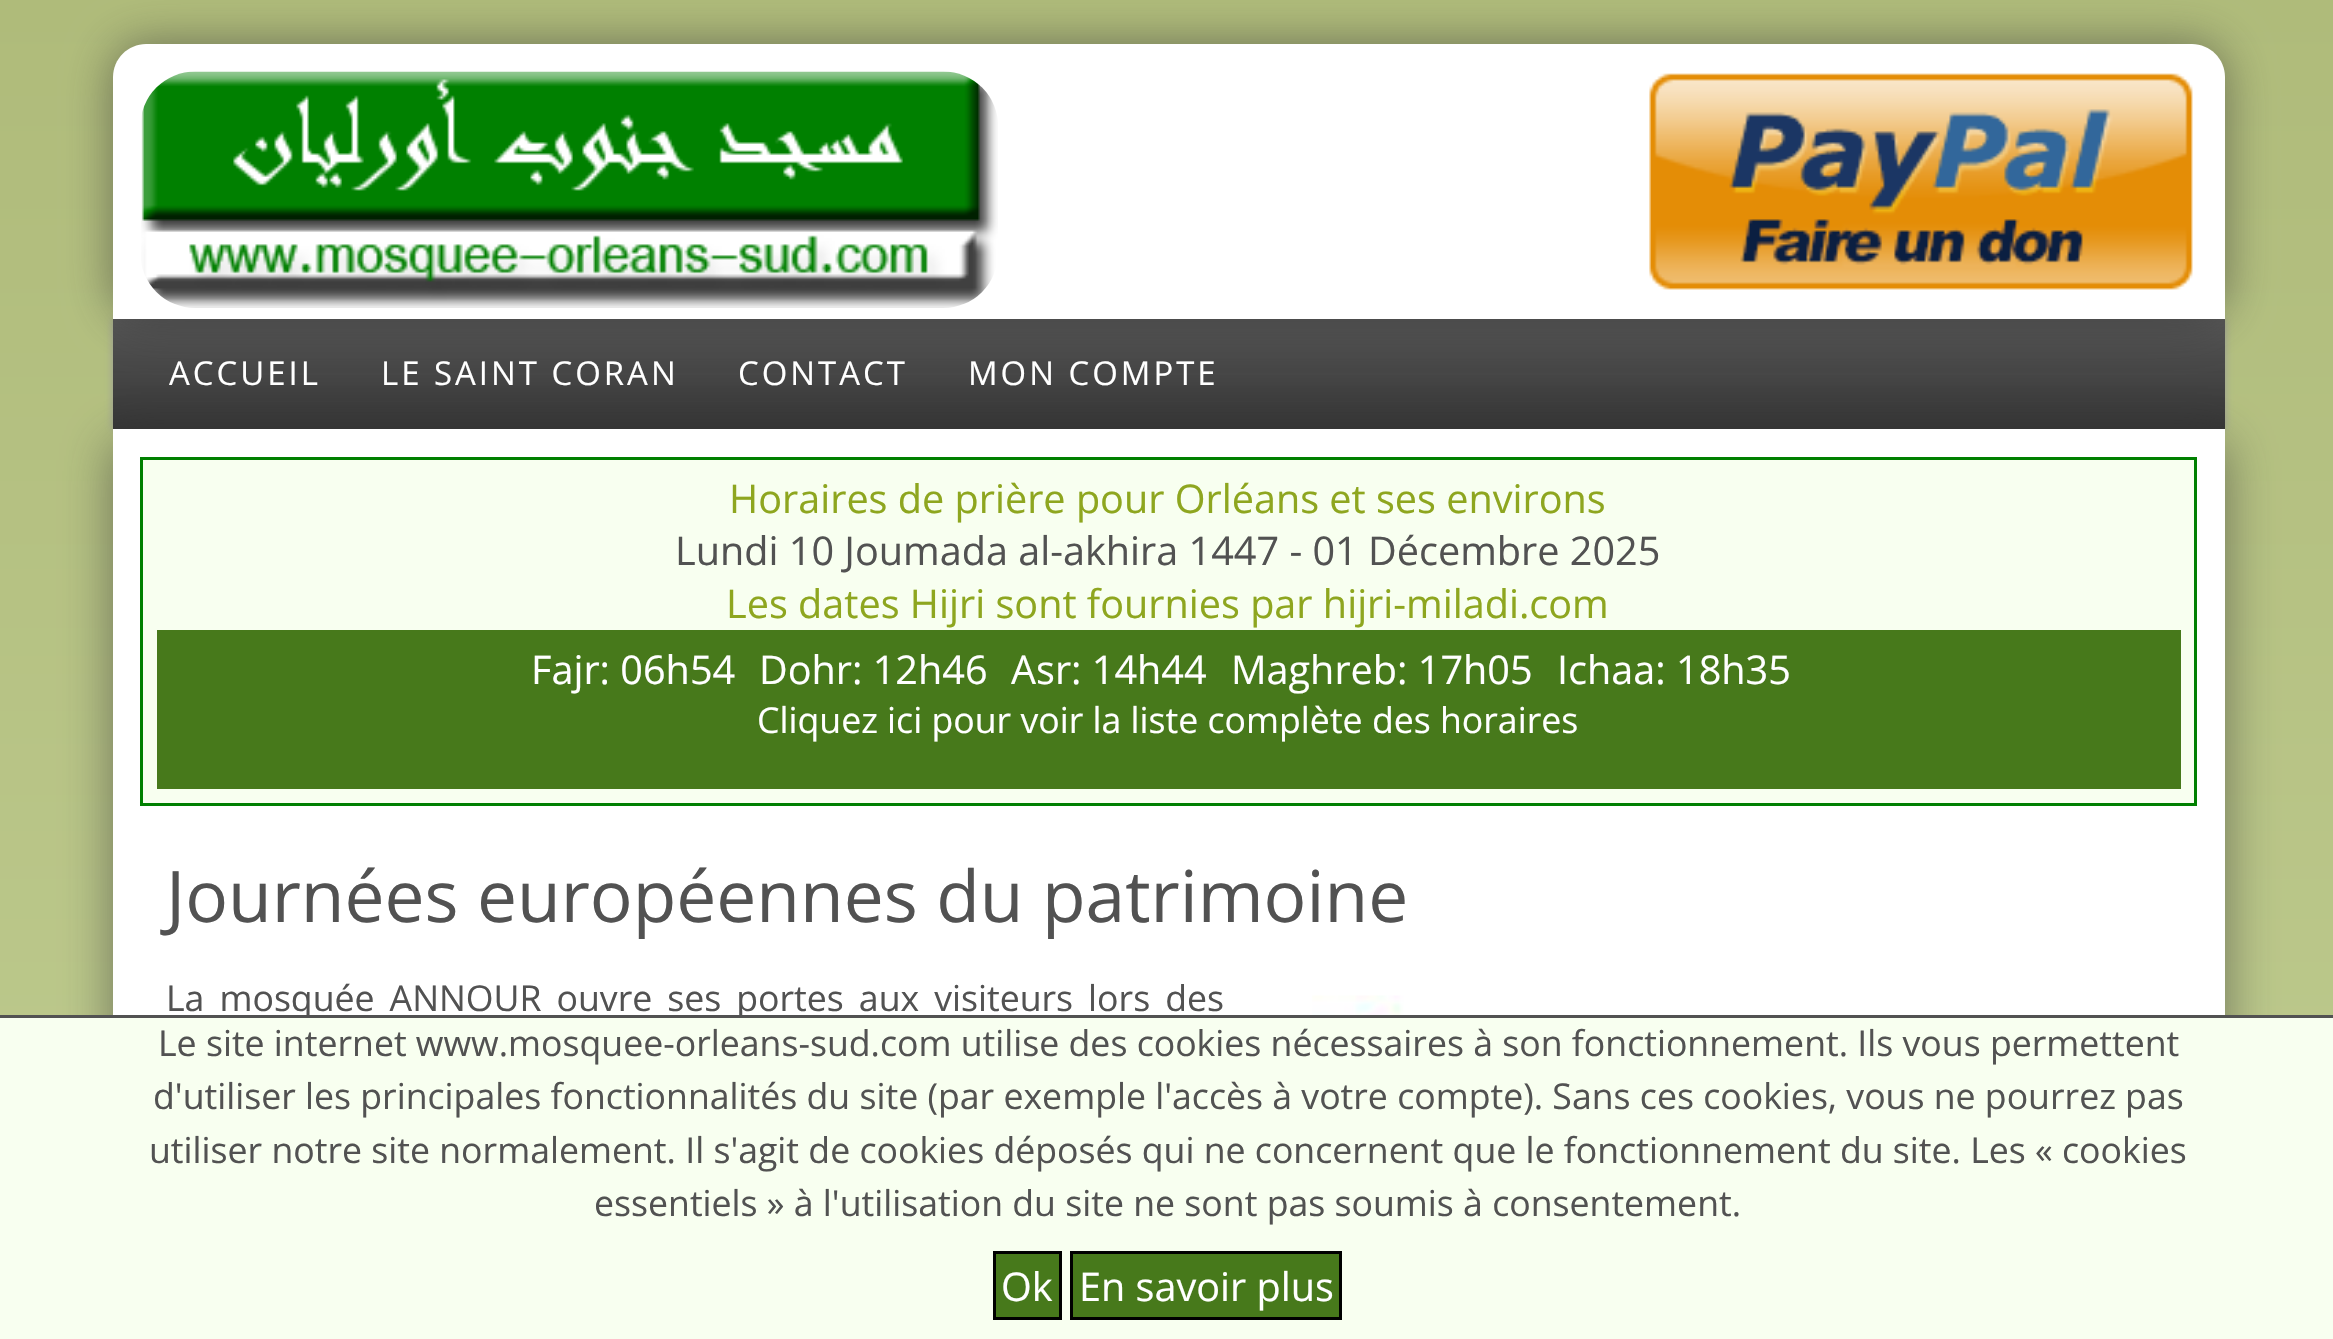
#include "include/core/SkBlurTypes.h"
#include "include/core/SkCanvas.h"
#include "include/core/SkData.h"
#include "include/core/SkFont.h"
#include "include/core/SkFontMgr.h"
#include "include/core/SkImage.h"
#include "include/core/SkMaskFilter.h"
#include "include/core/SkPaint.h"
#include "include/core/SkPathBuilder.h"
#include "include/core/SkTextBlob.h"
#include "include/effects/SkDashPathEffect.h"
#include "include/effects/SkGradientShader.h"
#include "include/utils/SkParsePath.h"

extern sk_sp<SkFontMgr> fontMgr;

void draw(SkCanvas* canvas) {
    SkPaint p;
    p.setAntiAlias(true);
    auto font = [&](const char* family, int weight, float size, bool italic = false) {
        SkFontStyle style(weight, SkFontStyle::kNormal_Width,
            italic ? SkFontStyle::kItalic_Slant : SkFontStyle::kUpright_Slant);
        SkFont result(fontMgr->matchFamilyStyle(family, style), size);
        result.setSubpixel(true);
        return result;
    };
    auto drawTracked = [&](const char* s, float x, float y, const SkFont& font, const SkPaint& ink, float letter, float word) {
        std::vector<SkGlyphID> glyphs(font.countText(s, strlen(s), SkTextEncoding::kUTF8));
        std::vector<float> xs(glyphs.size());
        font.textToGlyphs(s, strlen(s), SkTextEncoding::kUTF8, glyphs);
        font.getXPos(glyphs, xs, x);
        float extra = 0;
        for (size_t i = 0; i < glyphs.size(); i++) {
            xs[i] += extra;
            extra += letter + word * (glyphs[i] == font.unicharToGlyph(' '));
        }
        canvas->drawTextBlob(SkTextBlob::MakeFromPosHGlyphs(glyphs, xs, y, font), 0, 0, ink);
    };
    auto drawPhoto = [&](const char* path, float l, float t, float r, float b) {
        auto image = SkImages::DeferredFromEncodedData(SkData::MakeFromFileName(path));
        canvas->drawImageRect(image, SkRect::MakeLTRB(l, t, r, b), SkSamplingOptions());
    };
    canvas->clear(0xFFFFFFFF);
    {
        const SkColor colors[] = {0xFFAFBB7A, 0xFFDBE9B6};
        const float stops[] = {0, 1};
        const SkPoint ends[] = {{1167, 0}, {1167, 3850}};
        p.setShader(SkGradientShader::MakeLinear(ends, colors, stops, 2, SkTileMode::kClamp));
        p.setAlpha(255);
    }
    canvas->drawRect(SkRect::MakeLTRB(0, 0, 2333, 1015), p);
    p.setShader(nullptr);
    p.setColor(0xFF999999);
    p.setMaskFilter(SkMaskFilter::MakeBlur(kNormal_SkBlurStyle, 4));
    canvas->drawRect(SkRect::MakeLTRB(113, 319, 2225, 429), p);
    p.setMaskFilter(nullptr);
    {
        const SkColor colors[] = {0xFF555555, 0xFF333333};
        const float stops[] = {0, 1};
        const SkPoint ends[] = {{1169, 319}, {1169, 434}};
        p.setShader(SkGradientShader::MakeLinear(ends, colors, stops, 2, SkTileMode::kClamp));
        p.setAlpha(255);
    }
    canvas->drawRect(SkRect::MakeLTRB(113, 319, 2225, 429), p);
    p.setShader(nullptr);
    p.setColor(0x8F323232);
    p.setMaskFilter(SkMaskFilter::MakeBlur(kNormal_SkBlurStyle, 23.5f));
    canvas->drawRoundRect(SkRect::MakeLTRB(113, 44, 2225, 319), 33, 33, p);
    p.setMaskFilter(nullptr);
    p.setColor(0xFFFFFFFF);
    canvas->drawPath(SkPathBuilder().moveTo(146, 44).lineTo(2192, 44).cubicTo(2210, 44, 2225, 59, 2225, 77).lineTo(2225, 319).lineTo(113, 319).lineTo(113, 77).cubicTo(113, 59, 128, 44, 146, 44).close().detach(), p);
    drawPhoto("media/1.png", 141, 71, 998, 308);
    drawPhoto("media/2.png", 1649, 73, 2193, 290);
    auto font1 = font("Open Sans", 400, 32.9f);
    {
        const struct { const char* s; float x, y; } items[] = {
            {"ACCUEIL", 169, 385},
            {"LE SAINT CORAN", 381, 385},
            {"CONTACT", 738, 385},
            {"MON COMPTE", 968, 385},
        };
        for (auto [s, x, y] : items) {
            drawTracked(s, x, y, font1, p, 3, 0);
        }
    }
    p.setColor(0x8F323232);
    p.setMaskFilter(SkMaskFilter::MakeBlur(kNormal_SkBlurStyle, 23.5f));
    canvas->drawRect(SkRect::MakeLTRB(113, 443, 2225, 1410), p);
    p.setMaskFilter(nullptr);
    p.setColor(0xFFFFFFFF);
    canvas->drawRect(SkRect::MakeLTRB(113, 429, 2225, 1015), p);
    p.setColor(0xFFF8FFF0);
    canvas->drawRect(SkRect::MakeLTRB(141.5f, 458.5f, 2195.5f, 804.5f), p);
    p.setStyle(SkPaint::kStroke_Style);
    p.setStrokeWidth(3);
    p.setColor(0xFF008000);
    canvas->drawRect(SkRect::MakeLTRB(141.5f, 458.5f, 2195.5f, 804.5f), p);
    auto font2 = font("Open Sans", 400, 39.6f);
    p.setStyle(SkPaint::kFill_Style);
    p.setColor(0xFF8EA61F);
    canvas->drawString("Horaires de prière pour Orléans et ses environs", 729, 513, font2, p);
    p.setColor(0xFF525252);
    canvas->drawString("Lundi 10 Joumada al-akhira 1447 - 01 Décembre 2025", 675, 565, font2, p);
    p.setColor(0xFF8EA61F);
    canvas->drawString("Les dates Hijri sont fournies par hijri-miladi.com", 726, 618, font2, p);
    p.setColor(0xFF47791B);
    canvas->drawRect(SkRect::MakeLTRB(157, 630, 2181, 789), p);
    p.setColor(0xFFFFFFFF);
    {
        const struct { const char* s; float x, y; } items[] = {
            {"Fajr: 06h54", 531, 684},
            {"Dohr: 12h46", 759, 684},
            {"Asr: 14h44", 1011, 684},
            {"Maghreb: 17h05", 1231, 684},
            {"Ichaa: 18h35", 1557, 684},
        };
        for (auto [s, x, y] : items) {
            canvas->drawString(s, x, y, font2, p);
        }
    }
    auto font3 = font("Open Sans", 400, 35.65f);
    canvas->drawString("Cliquez ici pour voir la liste complète des horaires", 757, 733, font3, p);
    auto font4 = font("Open Sans", 400, 71.25f);
    p.setColor(0xFF525252);
    canvas->drawString("Journées européennes du patrimoine", 166, 922, font4, p);
    drawTracked("La mosquée ANNOUR ouvre ses portes aux visiteurs lors des", 166, 1011, font3, p, 0, 5.75f);
    drawPhoto("media/3.png", 1312, 995, 2148, 1015);
    p.setColor(0xFFF8FFF0);
    canvas->drawRect(SkRect::MakeLTRB(0, 1018, 2333, 1339), p);
    p.setColor(0xFF525252);
    canvas->drawRect(SkRect::MakeLTRB(0, 1015, 2333, 1018), p);
    {
        const struct { const char* s; float x, y; } items[] = {
            {"Le site internet www.mosquee-orleans-sud.com utilise des cookies nécessaires à son fonctionnement. Ils vous permettent", 158, 1056},
            {"d'utiliser les principales fonctionnalités du site (par exemple l'accès à votre compte). Sans ces cookies, vous ne pourrez pas", 153, 1109},
            {"utiliser notre site normalement. Il s'agit de cookies déposés qui ne concernent que le fonctionnement du site. Les « cookies", 149, 1163},
            {"essentiels » à l'utilisation du site ne sont pas soumis à consentement.", 594, 1216},
        };
        for (auto [s, x, y] : items) {
            canvas->drawString(s, x, y, font3, p);
        }
    }
    p.setColor(0xFF47791B);
    canvas->drawRect(SkRect::MakeLTRB(994.5f, 1252.5f, 1060.5f, 1318.5f), p);
    p.setStyle(SkPaint::kStroke_Style);
    p.setColor(0xFF000000);
    canvas->drawRect(SkRect::MakeLTRB(994.5f, 1252.5f, 1060.5f, 1318.5f), p);
    p.setStyle(SkPaint::kFill_Style);
    p.setColor(0xFFFFFFFF);
    canvas->drawString("Ok", 1001, 1301, font2, p);
    p.setColor(0xFF47791B);
    canvas->drawRect(SkRect::MakeLTRB(1071.5f, 1252.5f, 1340.5f, 1318.5f), p);
    p.setStyle(SkPaint::kStroke_Style);
    p.setColor(0xFF000000);
    canvas->drawRect(SkRect::MakeLTRB(1071.5f, 1252.5f, 1340.5f, 1318.5f), p);
    p.setStyle(SkPaint::kFill_Style);
    p.setColor(0xFFFFFFFF);
    canvas->drawString("En savoir plus", 1079, 1301, font2, p);
}
